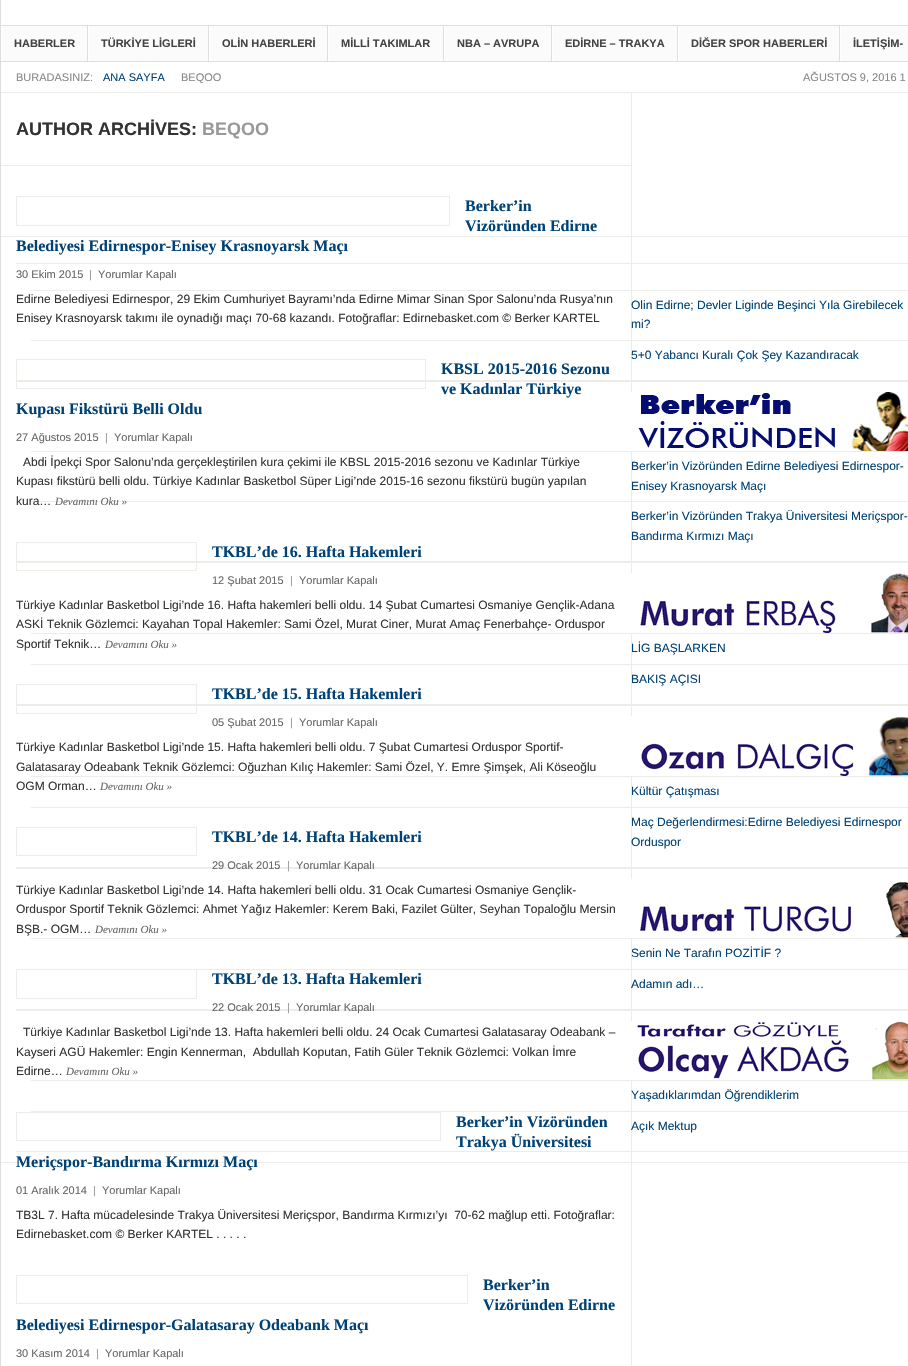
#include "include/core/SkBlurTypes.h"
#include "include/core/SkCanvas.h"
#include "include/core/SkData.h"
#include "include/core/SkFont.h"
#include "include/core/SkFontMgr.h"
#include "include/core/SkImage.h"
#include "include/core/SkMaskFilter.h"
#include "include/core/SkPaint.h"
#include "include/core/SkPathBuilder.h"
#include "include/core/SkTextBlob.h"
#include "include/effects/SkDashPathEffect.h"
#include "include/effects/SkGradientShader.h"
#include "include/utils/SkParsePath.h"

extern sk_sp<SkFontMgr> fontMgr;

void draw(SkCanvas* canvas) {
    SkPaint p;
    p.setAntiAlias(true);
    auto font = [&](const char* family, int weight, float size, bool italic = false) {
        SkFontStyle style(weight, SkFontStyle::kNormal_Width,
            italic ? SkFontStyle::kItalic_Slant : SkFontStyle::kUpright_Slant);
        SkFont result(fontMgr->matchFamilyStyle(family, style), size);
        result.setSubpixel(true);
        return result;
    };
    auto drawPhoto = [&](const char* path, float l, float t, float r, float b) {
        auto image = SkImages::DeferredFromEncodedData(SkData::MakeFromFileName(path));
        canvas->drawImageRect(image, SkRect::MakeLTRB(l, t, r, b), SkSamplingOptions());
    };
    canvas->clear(0xFFFFFFFF);
    p.setStyle(SkPaint::kStroke_Style);
    p.setStrokeWidth(1);
    p.setColor(0xFFDDDDDD);
    canvas->drawRect(SkRect::MakeLTRB(0.5f, -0.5f, 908.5f, 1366.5f), p);
    p.setStyle(SkPaint::kFill_Style);
    {
        const struct { float l, t, r, b; SkColor color; } items[] = {
            {2, 26, 908, 61, 0xFFFBFBFB},
            {1, 25, 908, 26, 0xFFDFDFDF},
            {1, 61, 908, 62, 0xFFDFDFDF},
            {87, 26, 88, 61, 0xFFDFDFDF},
        };
        for (auto [l, t, r, b, color] : items) {
            p.setColor(color);
            canvas->drawRect(SkRect::MakeLTRB(l, t, r, b), p);
        }
    }
    auto font1 = font("Liberation Sans", 700, 11);
    p.setColor(0xFF444444);
    canvas->drawString("HABERLER", 14, 47, font1, p);
    p.setColor(0xFFDFDFDF);
    canvas->drawRect(SkRect::MakeLTRB(208, 26, 209, 61), p);
    p.setColor(0xFFFFFFFF);
    canvas->drawRect(SkRect::MakeLTRB(88, 26, 89, 61), p);
    p.setColor(0xFF444444);
    canvas->drawString("TÜRKİYE LİGLERİ", 101, 47, font1, p);
    p.setColor(0xFFDFDFDF);
    canvas->drawRect(SkRect::MakeLTRB(327, 26, 328, 61), p);
    p.setColor(0xFFFFFFFF);
    canvas->drawRect(SkRect::MakeLTRB(209, 26, 210, 61), p);
    p.setColor(0xFF444444);
    canvas->drawString("OLİN HABERLERİ", 222, 47, font1, p);
    p.setColor(0xFFDFDFDF);
    canvas->drawRect(SkRect::MakeLTRB(443, 26, 444, 61), p);
    p.setColor(0xFFFFFFFF);
    canvas->drawRect(SkRect::MakeLTRB(328, 26, 329, 61), p);
    p.setColor(0xFF444444);
    canvas->drawString("MİLLİ TAKIMLAR", 341, 47, font1, p);
    p.setColor(0xFFDFDFDF);
    canvas->drawRect(SkRect::MakeLTRB(551, 26, 552, 61), p);
    p.setColor(0xFFFFFFFF);
    canvas->drawRect(SkRect::MakeLTRB(444, 26, 445, 61), p);
    p.setColor(0xFF444444);
    canvas->drawString("NBA – AVRUPA", 457, 47, font1, p);
    p.setColor(0xFFDFDFDF);
    canvas->drawRect(SkRect::MakeLTRB(677, 26, 678, 61), p);
    p.setColor(0xFFFFFFFF);
    canvas->drawRect(SkRect::MakeLTRB(552, 26, 553, 61), p);
    p.setColor(0xFF444444);
    canvas->drawString("EDİRNE – TRAKYA", 565, 47, font1, p);
    p.setColor(0xFFDFDFDF);
    canvas->drawRect(SkRect::MakeLTRB(839, 26, 840, 61), p);
    p.setColor(0xFFFFFFFF);
    canvas->drawRect(SkRect::MakeLTRB(678, 26, 679, 61), p);
    p.setColor(0xFF444444);
    canvas->drawString("DİĞER SPOR HABERLERİ", 691, 47, font1, p);
    p.setColor(0xFFFFFFFF);
    canvas->drawRect(SkRect::MakeLTRB(840, 26, 841, 61), p);
    p.setColor(0xFF444444);
    canvas->drawString("İLETİŞİM-", 853, 47, font1, p);
    p.setColor(0xFFECEDE8);
    canvas->drawRect(SkRect::MakeLTRB(1, 92, 908, 93), p);
    auto font2 = font("Liberation Sans", 400, 11);
    p.setColor(0xFF888888);
    canvas->drawString("BURADASINIZ:", 16, 81, font2, p);
    p.setColor(0xFF004276);
    canvas->drawString("ANA SAYFA", 103, 81, font2, p);
    p.setColor(0xFF888888);
    canvas->drawString("BEQOO", 181, 81, font2, p);
    canvas->drawString("AĞUSTOS 9, 2016 1", 803, 81, font2, p);
    p.setColor(0xFFECEDE8);
    canvas->drawRect(SkRect::MakeLTRB(631, 93, 632, 1366), p);
    canvas->drawRect(SkRect::MakeLTRB(1, 165, 631, 166), p);
    auto font3 = font("Liberation Sans", 700, 18);
    p.setColor(0xFF333333);
    canvas->drawString("AUTHOR ARCHİVES:", 16, 135, font3, p);
    p.setColor(0xFF999999);
    canvas->drawString("BEQOO", 202, 135, font3, p);
    p.setStyle(SkPaint::kStroke_Style);
    p.setColor(0xFFECEDE8);
    canvas->drawRect(SkRect::MakeLTRB(16.5f, 196.5f, 449.5f, 225.5f), p);
    auto font4 = font("Liberation Serif", 700, 16);
    p.setStyle(SkPaint::kFill_Style);
    p.setColor(0xFF004276);
    {
        const struct { const char* s; float x, y; } items[] = {
            {"Berker’in", 465, 211},
            {"Vizöründen Edirne", 465, 231},
            {"Belediyesi Edirnespor-Enisey Krasnoyarsk Maçı", 16, 251},
        };
        for (auto [s, x, y] : items) {
            canvas->drawString(s, x, y, font4, p);
        }
    }
    p.setColor(0xFF666666);
    canvas->drawString("30 Ekim 2015", 16, 278, font2, p);
    p.setColor(0xFF999999);
    canvas->drawString("|", 89, 278, font2, p);
    p.setColor(0xFF666666);
    canvas->drawString("Yorumlar Kapalı", 98, 278, font2, p);
    auto font5 = font("Liberation Sans", 400, 12);
    p.setColor(0xFF333333);
    canvas->drawString("Edirne Belediyesi Edirnespor, 29 Ekim Cumhuriyet Bayramı’nda Edirne Mimar Sinan Spor Salonu’nda Rusya’nın", 16, 303, font5, p);
    canvas->drawString("Enisey Krasnoyarsk takımı ile oynadığı maçı 70-68 kazandı. Fotoğraflar: Edirnebasket.com © Berker KARTEL", 16, 322, font5, p);
    p.setColor(0xFFECEDE8);
    canvas->drawRect(SkRect::MakeLTRB(16, 380, 908, 382), p);
    p.setStyle(SkPaint::kStroke_Style);
    canvas->drawRect(SkRect::MakeLTRB(16.5f, 359.5f, 425.5f, 388.5f), p);
    p.setStyle(SkPaint::kFill_Style);
    p.setColor(0xFF004276);
    {
        const struct { const char* s; float x, y; } items[] = {
            {"KBSL 2015-2016 Sezonu", 441, 374},
            {"ve Kadınlar Türkiye", 441, 394},
            {"Kupası Fikstürü Belli Oldu", 16, 414},
        };
        for (auto [s, x, y] : items) {
            canvas->drawString(s, x, y, font4, p);
        }
    }
    p.setColor(0xFF666666);
    canvas->drawString("27 Ağustos 2015", 16, 441, font2, p);
    p.setColor(0xFF999999);
    canvas->drawString("|", 105, 441, font2, p);
    p.setColor(0xFF666666);
    canvas->drawString("Yorumlar Kapalı", 114, 441, font2, p);
    p.setColor(0xFF333333);
    canvas->drawString("Abdi İpekçi Spor Salonu’nda gerçekleştirilen kura çekimi ile KBSL 2015-2016 sezonu ve Kadınlar Türkiye", 23, 466, font5, p);
    canvas->drawString("Kupası fikstürü belli oldu. Türkiye Kadınlar Basketbol Süper Ligi’nde 2015-16 sezonu fikstürü bugün yapılan", 16, 485, font5, p);
    p.setColor(0xFFECEDE8);
    canvas->drawRect(SkRect::MakeLTRB(31, 501, 908, 502), p);
    p.setColor(0xFF333333);
    canvas->drawString("kura…", 16, 505, font5, p);
    auto font6 = font("Liberation Serif", 400, 11, true);
    p.setColor(0xFF666666);
    canvas->drawString("Devamını Oku »", 55, 505, font6, p);
    p.setColor(0xFFECEDE8);
    canvas->drawRect(SkRect::MakeLTRB(16, 561, 908, 563), p);
    p.setStyle(SkPaint::kStroke_Style);
    canvas->drawRect(SkRect::MakeLTRB(16.5f, 542.5f, 196.5f, 570.5f), p);
    p.setStyle(SkPaint::kFill_Style);
    p.setColor(0xFF004276);
    canvas->drawString("TKBL’de 16. Hafta Hakemleri", 212, 557, font4, p);
    p.setColor(0xFF666666);
    canvas->drawString("12 Şubat 2015", 212, 584, font2, p);
    p.setColor(0xFF999999);
    canvas->drawString("|", 290, 584, font2, p);
    p.setColor(0xFF666666);
    canvas->drawString("Yorumlar Kapalı", 299, 584, font2, p);
    p.setColor(0xFF333333);
    {
        const struct { const char* s; float x, y; } items[] = {
            {"Türkiye Kadınlar Basketbol Ligi’nde 16. Hafta hakemleri belli oldu. 14 Şubat Cumartesi Osmaniye Gençlik-Adana", 16, 609},
            {"ASKİ Teknik Gözlemci: Kayahan Topal Hakemler: Sami Özel, Murat Ciner, Murat Amaç Fenerbahçe- Orduspor", 16, 628},
            {"Sportif Teknik…", 16, 648},
        };
        for (auto [s, x, y] : items) {
            canvas->drawString(s, x, y, font5, p);
        }
    }
    p.setColor(0xFF666666);
    canvas->drawString("Devamını Oku »", 105, 648, font6, p);
    p.setColor(0xFFECEDE8);
    canvas->drawRect(SkRect::MakeLTRB(16, 704, 908, 706), p);
    p.setStyle(SkPaint::kStroke_Style);
    canvas->drawRect(SkRect::MakeLTRB(16.5f, 684.5f, 196.5f, 713.5f), p);
    p.setStyle(SkPaint::kFill_Style);
    p.setColor(0xFF004276);
    canvas->drawString("TKBL’de 15. Hafta Hakemleri", 212, 699, font4, p);
    p.setColor(0xFF666666);
    canvas->drawString("05 Şubat 2015", 212, 726, font2, p);
    p.setColor(0xFF999999);
    canvas->drawString("|", 290, 726, font2, p);
    p.setColor(0xFF666666);
    canvas->drawString("Yorumlar Kapalı", 299, 726, font2, p);
    p.setColor(0xFF333333);
    {
        const struct { const char* s; float x, y; } items[] = {
            {"Türkiye Kadınlar Basketbol Ligi’nde 15. Hafta hakemleri belli oldu. 7 Şubat Cumartesi Orduspor Sportif-", 16, 751},
            {"Galatasaray Odeabank Teknik Gözlemci: Oğuzhan Kılıç Hakemler: Sami Özel, Y. Emre Şimşek, Ali Köseoğlu", 16, 771},
            {"OGM Orman…", 16, 790},
        };
        for (auto [s, x, y] : items) {
            canvas->drawString(s, x, y, font5, p);
        }
    }
    p.setColor(0xFF666666);
    canvas->drawString("Devamını Oku »", 100, 790, font6, p);
    p.setStyle(SkPaint::kStroke_Style);
    p.setColor(0xFFECEDE8);
    canvas->drawRect(SkRect::MakeLTRB(16.5f, 827.5f, 196.5f, 855.5f), p);
    p.setStyle(SkPaint::kFill_Style);
    p.setColor(0xFF004276);
    canvas->drawString("TKBL’de 14. Hafta Hakemleri", 212, 842, font4, p);
    p.setColor(0xFFECEDE8);
    canvas->drawRect(SkRect::MakeLTRB(16, 867, 908, 869), p);
    p.setColor(0xFF666666);
    canvas->drawString("29 Ocak 2015", 212, 869, font2, p);
    p.setColor(0xFF999999);
    canvas->drawString("|", 287, 869, font2, p);
    p.setColor(0xFF666666);
    canvas->drawString("Yorumlar Kapalı", 296, 869, font2, p);
    p.setColor(0xFF333333);
    {
        const struct { const char* s; float x, y; } items[] = {
            {"Türkiye Kadınlar Basketbol Ligi’nde 14. Hafta hakemleri belli oldu. 31 Ocak Cumartesi Osmaniye Gençlik-", 16, 894},
            {"Orduspor Sportif Teknik Gözlemci: Ahmet Yağız Hakemler: Kerem Baki, Fazilet Gülter, Seyhan Topaloğlu Mersin", 16, 913},
            {"BŞB.- OGM…", 16, 933},
        };
        for (auto [s, x, y] : items) {
            canvas->drawString(s, x, y, font5, p);
        }
    }
    p.setColor(0xFF666666);
    canvas->drawString("Devamını Oku »", 95, 933, font6, p);
    p.setStyle(SkPaint::kStroke_Style);
    p.setColor(0xFFECEDE8);
    canvas->drawRect(SkRect::MakeLTRB(16.5f, 969.5f, 196.5f, 998.5f), p);
    p.setStyle(SkPaint::kFill_Style);
    p.setColor(0xFF004276);
    canvas->drawString("TKBL’de 13. Hafta Hakemleri", 212, 984, font4, p);
    p.setColor(0xFFECEDE8);
    canvas->drawRect(SkRect::MakeLTRB(16, 1009, 908, 1011), p);
    p.setColor(0xFF666666);
    canvas->drawString("22 Ocak 2015", 212, 1011, font2, p);
    p.setColor(0xFF999999);
    canvas->drawString("|", 287, 1011, font2, p);
    p.setColor(0xFF666666);
    canvas->drawString("Yorumlar Kapalı", 296, 1011, font2, p);
    p.setColor(0xFF333333);
    {
        const struct { const char* s; float x, y; } items[] = {
            {"Türkiye Kadınlar Basketbol Ligi’nde 13. Hafta hakemleri belli oldu. 24 Ocak Cumartesi Galatasaray Odeabank –", 23, 1036},
            {"Kayseri AGÜ Hakemler: Engin Kennerman,  Abdullah Koputan, Fatih Güler Teknik Gözlemci: Volkan İmre", 16, 1056},
            {"Edirne…", 16, 1075},
        };
        for (auto [s, x, y] : items) {
            canvas->drawString(s, x, y, font5, p);
        }
    }
    p.setColor(0xFF666666);
    canvas->drawString("Devamını Oku »", 66, 1075, font6, p);
    p.setStyle(SkPaint::kStroke_Style);
    p.setColor(0xFFECEDE8);
    canvas->drawRect(SkRect::MakeLTRB(16.5f, 1112.5f, 440.5f, 1140.5f), p);
    p.setStyle(SkPaint::kFill_Style);
    p.setColor(0xFF004276);
    canvas->drawString("Berker’in Vizöründen", 456, 1127, font4, p);
    canvas->drawString("Trakya Üniversitesi", 456, 1147, font4, p);
    p.setColor(0xFFECEDE8);
    canvas->drawRect(SkRect::MakeLTRB(1, 1162, 908, 1163), p);
    p.setColor(0xFF004276);
    canvas->drawString("Meriçspor-Bandırma Kırmızı Maçı", 16, 1167, font4, p);
    p.setColor(0xFF666666);
    canvas->drawString("01 Aralık 2014", 16, 1194, font2, p);
    p.setColor(0xFF999999);
    canvas->drawString("|", 93, 1194, font2, p);
    p.setColor(0xFF666666);
    canvas->drawString("Yorumlar Kapalı", 102, 1194, font2, p);
    p.setColor(0xFF333333);
    canvas->drawString("TB3L 7. Hafta mücadelesinde Trakya Üniversitesi Meriçspor, Bandırma Kırmızı’yı  70-62 mağlup etti. Fotoğraflar:", 16, 1219, font5, p);
    canvas->drawString("Edirnebasket.com © Berker KARTEL . . . . .", 16, 1238, font5, p);
    p.setStyle(SkPaint::kStroke_Style);
    p.setColor(0xFFECEDE8);
    canvas->drawRect(SkRect::MakeLTRB(16.5f, 1275.5f, 467.5f, 1303.5f), p);
    p.setStyle(SkPaint::kFill_Style);
    p.setColor(0xFF004276);
    {
        const struct { const char* s; float x, y; } items[] = {
            {"Berker’in", 483, 1290},
            {"Vizöründen Edirne", 483, 1310},
            {"Belediyesi Edirnespor-Galatasaray Odeabank Maçı", 16, 1330},
        };
        for (auto [s, x, y] : items) {
            canvas->drawString(s, x, y, font4, p);
        }
    }
    p.setColor(0xFF666666);
    canvas->drawString("30 Kasım 2014", 16, 1357, font2, p);
    p.setColor(0xFF999999);
    canvas->drawString("|", 96, 1357, font2, p);
    p.setColor(0xFF666666);
    canvas->drawString("Yorumlar Kapalı", 105, 1357, font2, p);
    {
        const struct { float l, t, r, b; SkColor color; } items[] = {
            {1, 236, 908, 237, 0xFFECEDE8},
            {16, 263, 908, 264, 0xFFECEDE8},
            {31, 290, 908, 291, 0xFFECEDE8},
        };
        for (auto [l, t, r, b, color] : items) {
            p.setColor(color);
            canvas->drawRect(SkRect::MakeLTRB(l, t, r, b), p);
        }
    }
    p.setColor(0xFF004276);
    canvas->drawString("Olin Edirne; Devler Liginde Beşinci Yıla Girebilecek", 631, 309, font5, p);
    canvas->drawString("mi?", 631, 328, font5, p);
    p.setColor(0xFFECEDE8);
    canvas->drawRect(SkRect::MakeLTRB(31, 340, 908, 341), p);
    p.setColor(0xFF004276);
    canvas->drawString("5+0 Yabancı Kuralı Çok Şey Kazandıracak", 631, 359, font5, p);
    drawPhoto("media/1.png", 631, 392, 908, 451);
    p.setColor(0xFFECEDE8);
    canvas->drawRect(SkRect::MakeLTRB(31, 451, 908, 452), p);
    p.setColor(0xFF004276);
    {
        const struct { const char* s; float x, y; } items[] = {
            {"Berker’in Vizöründen Edirne Belediyesi Edirnespor-", 631, 470},
            {"Enisey Krasnoyarsk Maçı", 631, 490},
            {"Berker’in Vizöründen Trakya Üniversitesi Meriçspor-", 631, 520},
            {"Bandırma Kırmızı Maçı", 631, 540},
        };
        for (auto [s, x, y] : items) {
            canvas->drawString(s, x, y, font5, p);
        }
    }
    drawPhoto("media/2.png", 631, 573, 908, 633);
    p.setColor(0xFFECEDE8);
    canvas->drawRect(SkRect::MakeLTRB(31, 633, 908, 634), p);
    p.setColor(0xFF004276);
    canvas->drawString("LİG BAŞLARKEN", 631, 652, font5, p);
    p.setColor(0xFFECEDE8);
    canvas->drawRect(SkRect::MakeLTRB(31, 664, 908, 665), p);
    p.setColor(0xFF004276);
    canvas->drawString("BAKIŞ AÇISI", 631, 683, font5, p);
    drawPhoto("media/3.png", 631, 716, 908, 776);
    p.setColor(0xFFECEDE8);
    canvas->drawRect(SkRect::MakeLTRB(31, 776, 908, 777), p);
    p.setColor(0xFF004276);
    canvas->drawString("Kültür Çatışması", 631, 795, font5, p);
    p.setColor(0xFFECEDE8);
    canvas->drawRect(SkRect::MakeLTRB(31, 807, 908, 808), p);
    p.setColor(0xFF004276);
    canvas->drawString("Maç Değerlendirmesi:Edirne Belediyesi Edirnespor", 631, 826, font5, p);
    canvas->drawString("Orduspor", 631, 846, font5, p);
    drawPhoto("media/4.png", 631, 879, 908, 938);
    p.setColor(0xFFECEDE8);
    canvas->drawRect(SkRect::MakeLTRB(31, 938, 908, 939), p);
    p.setColor(0xFF004276);
    canvas->drawString("Senin Ne Tarafın POZİTİF ?", 631, 957, font5, p);
    p.setColor(0xFFECEDE8);
    canvas->drawRect(SkRect::MakeLTRB(197, 969, 908, 970), p);
    p.setColor(0xFF004276);
    canvas->drawString("Adamın adı…", 631, 988, font5, p);
    p.setColor(0xFFECEDE8);
    canvas->drawRect(SkRect::MakeLTRB(16, 1151, 908, 1152), p);
    drawPhoto("media/5.png", 631, 1021, 908, 1080);
    canvas->drawRect(SkRect::MakeLTRB(31, 1080, 908, 1081), p);
    p.setColor(0xFF004276);
    canvas->drawString("Yaşadıklarımdan Öğrendiklerim", 631, 1099, font5, p);
    p.setColor(0xFFECEDE8);
    canvas->drawRect(SkRect::MakeLTRB(31, 1111, 908, 1112), p);
    p.setColor(0xFF004276);
    canvas->drawString("Açık Mektup", 631, 1130, font5, p);
}
